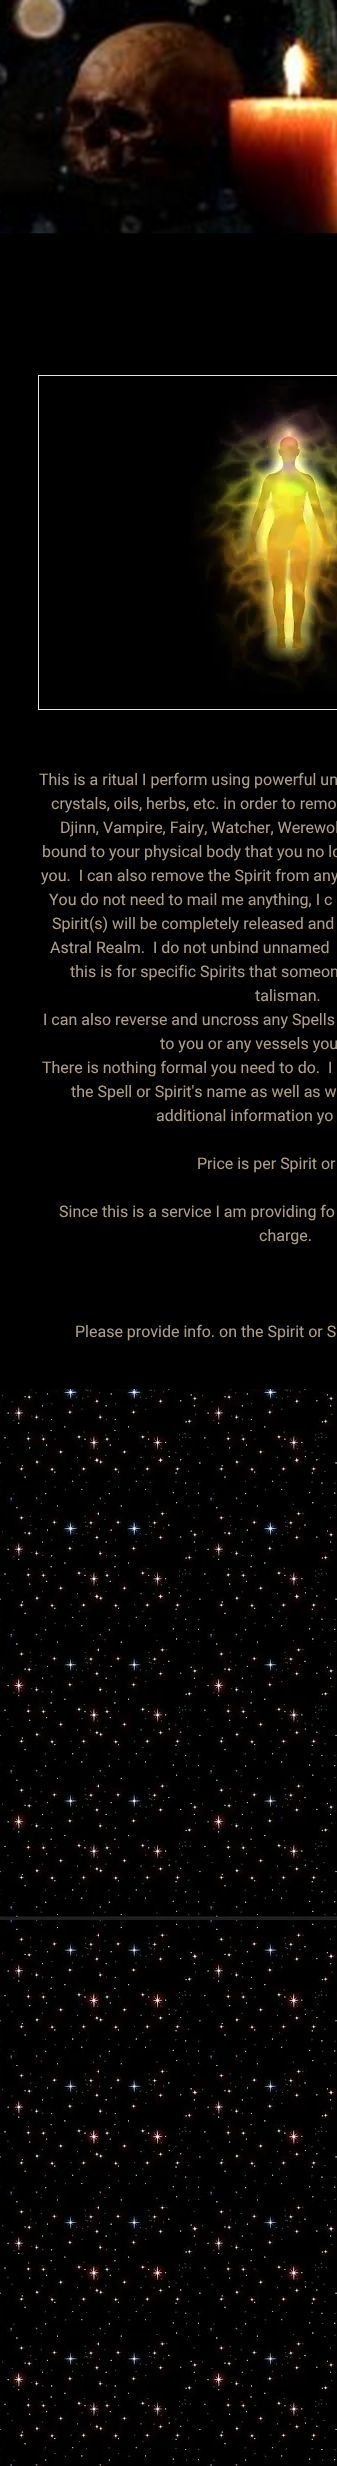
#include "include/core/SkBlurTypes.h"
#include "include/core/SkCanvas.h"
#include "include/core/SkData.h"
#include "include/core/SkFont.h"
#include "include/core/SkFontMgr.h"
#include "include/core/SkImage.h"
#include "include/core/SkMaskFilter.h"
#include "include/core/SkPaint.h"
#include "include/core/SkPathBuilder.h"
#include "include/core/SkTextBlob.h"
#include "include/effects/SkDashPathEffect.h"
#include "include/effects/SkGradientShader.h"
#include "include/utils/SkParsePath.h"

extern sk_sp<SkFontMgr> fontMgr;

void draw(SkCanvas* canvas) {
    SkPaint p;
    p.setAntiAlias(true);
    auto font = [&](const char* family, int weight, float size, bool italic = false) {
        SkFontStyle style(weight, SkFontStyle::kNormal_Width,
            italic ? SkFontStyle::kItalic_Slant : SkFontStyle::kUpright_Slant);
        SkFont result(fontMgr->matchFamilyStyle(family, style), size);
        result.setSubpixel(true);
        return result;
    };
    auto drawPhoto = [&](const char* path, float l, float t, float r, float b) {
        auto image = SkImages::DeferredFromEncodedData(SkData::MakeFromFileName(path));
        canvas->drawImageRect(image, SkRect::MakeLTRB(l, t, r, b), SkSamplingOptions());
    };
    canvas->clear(0xFFFFFFFF);
    drawPhoto("media/1.png", 0, 0, 337, 234);
    p.setColor(0xFF000000);
    canvas->drawRect(SkRect::MakeLTRB(0, 234, 337, 1389), p);
    p.setStyle(SkPaint::kStroke_Style);
    p.setStrokeWidth(1);
    p.setColor(0xFFE8E6E6);
    canvas->drawRect(SkRect::MakeLTRB(38.5f, 375.5f, 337.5f, 709.5f), p);
    drawPhoto("media/2.png", 190, 380, 337, 693);
    auto font1 = font("Roboto", 400, 16);
    p.setStyle(SkPaint::kFill_Style);
    p.setColor(0xFFAC9E87);
    {
        const struct { const char* s; float x, y; } items[] = {
            {"This is a ritual I perform using powerful un", 39, 785},
            {"crystals, oils, herbs, etc. in order to remo", 51, 809},
            {"Djinn, Vampire, Fairy, Watcher, Werewol", 60, 833},
            {"bound to your physical body that you no lo", 42, 857},
            {"you.  I can also remove the Spirit from any", 41, 881},
            {"You do not need to mail me anything, I c", 49, 905},
            {"Spirit(s) will be completely released and", 52, 929},
            {"Astral Realm.  I do not unbind unnamed", 50, 953},
            {"this is for specific Spirits that someon", 70, 977},
            {"talisman.", 255, 1001},
            {"I can also reverse and uncross any Spells", 43, 1025},
            {"to you or any vessels you", 160, 1049},
            {"There is nothing formal you need to do.  I", 42, 1073},
            {"the Spell or Spirit's name as well as w", 71, 1097},
            {"additional information yo", 156, 1121},
            {"Price is per Spirit or", 197, 1169},
            {"Since this is a service I am providing fo", 59, 1217},
            {"charge.", 259, 1241},
            {"Please provide info. on the Spirit or S", 75, 1337},
        };
        for (auto [s, x, y] : items) {
            canvas->drawString(s, x, y, font1, p);
        }
    }
    drawPhoto("media/3.png", 0, 1389, 337, 2466);
}
